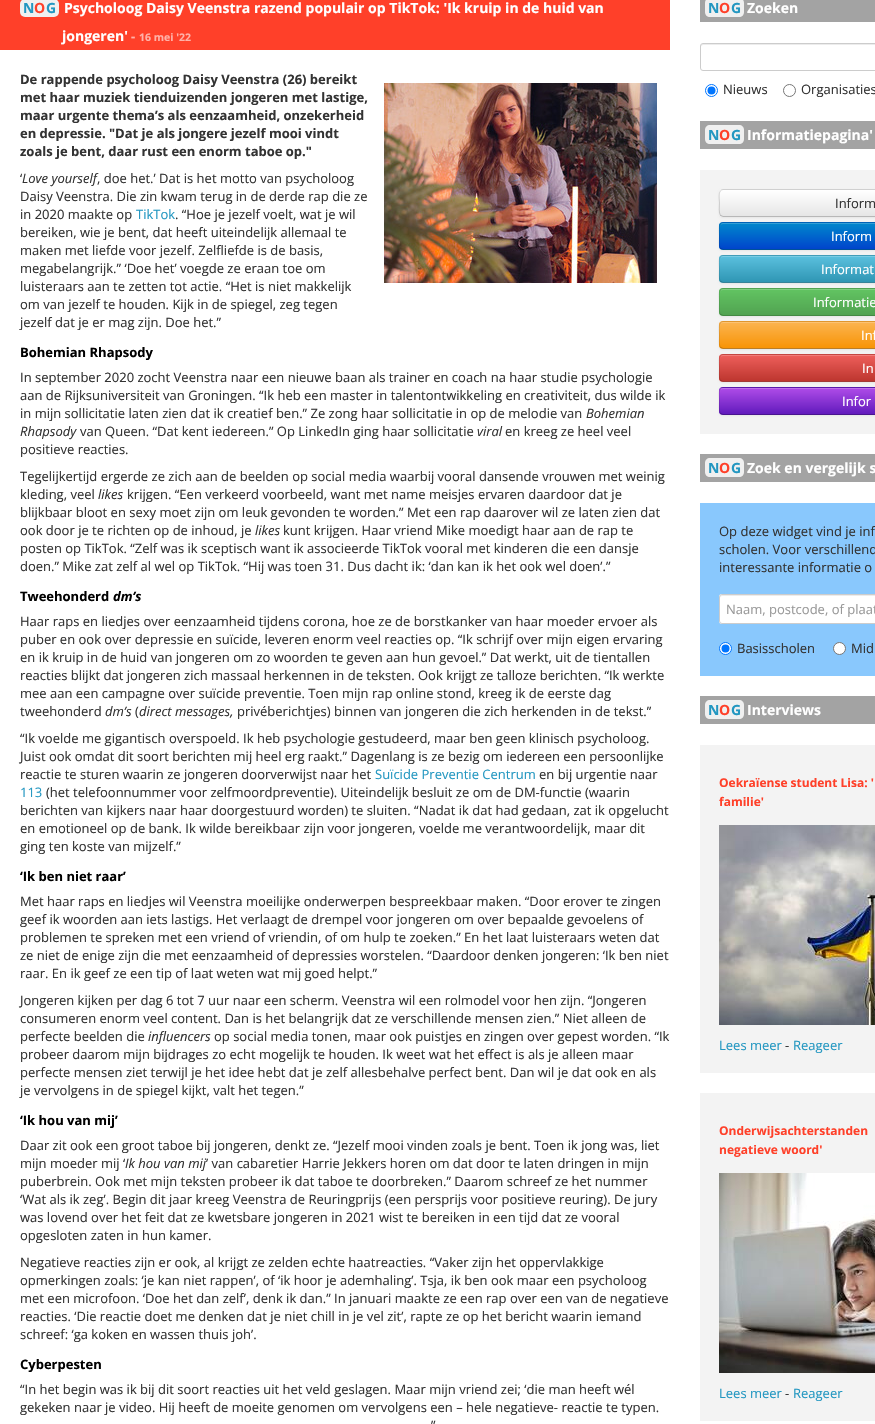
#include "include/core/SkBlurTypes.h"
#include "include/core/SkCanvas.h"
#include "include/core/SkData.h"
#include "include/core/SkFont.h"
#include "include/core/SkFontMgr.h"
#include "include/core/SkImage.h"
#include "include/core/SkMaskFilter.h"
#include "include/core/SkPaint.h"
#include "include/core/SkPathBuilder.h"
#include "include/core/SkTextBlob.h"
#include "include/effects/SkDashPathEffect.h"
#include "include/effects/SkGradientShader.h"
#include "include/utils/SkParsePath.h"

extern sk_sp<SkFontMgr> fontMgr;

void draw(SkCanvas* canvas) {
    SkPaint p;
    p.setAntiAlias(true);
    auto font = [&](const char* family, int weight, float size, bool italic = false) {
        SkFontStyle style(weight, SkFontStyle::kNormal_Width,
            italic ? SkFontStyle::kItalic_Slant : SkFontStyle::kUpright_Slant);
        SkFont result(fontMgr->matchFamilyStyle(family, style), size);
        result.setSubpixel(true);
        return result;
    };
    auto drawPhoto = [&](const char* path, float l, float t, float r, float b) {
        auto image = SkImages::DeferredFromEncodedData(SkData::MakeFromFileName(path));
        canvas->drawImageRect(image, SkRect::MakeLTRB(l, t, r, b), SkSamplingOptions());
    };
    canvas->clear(0xFFFFFFFF);
    p.setColor(0xFFFF4029);
    canvas->drawRect(SkRect::MakeLTRB(0, 0, 670, 50), p);
    p.setColor(0xFFF0F0F0);
    canvas->drawRoundRect(SkRect::MakeLTRB(20, -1, 59, 17), 5, 5, p);
    auto font1 = font("Open Sans", 700, 14);
    p.setColor(0xFF2397C1);
    canvas->drawString("N", 23, 13, font1, p);
    p.setColor(0xFFFF4029);
    canvas->drawString("O", 34, 13, font1, p);
    p.setColor(0xFF2397C1);
    canvas->drawString("G", 46, 13, font1, p);
    p.setColor(0xFFFFFFFF);
    canvas->drawString("Psycholoog Daisy Veenstra razend populair op TikTok: 'Ik kruip in de huid van", 64, 13, font1, p);
    canvas->drawString("jongeren'", 62, 41, font1, p);
    auto font2 = font("Open Sans", 700, 13);
    p.setColor(0xFFFFB2A9);
    canvas->drawString("-", 131, 41, font2, p);
    auto font3 = font("Open Sans", 700, 10.5f);
    canvas->drawString("16 mei '22", 139, 41, font3, p);
    p.setColor(0xFF333333);
    {
        const struct { const char* s; float x, y; } items[] = {
            {"De rappende psycholoog Daisy Veenstra (26) bereikt", 20, 84},
            {"met haar muziek tienduizenden jongeren met lastige,", 20, 102},
            {"maar urgente thema’s als eenzaamheid, onzekerheid", 20, 120},
            {"en depressie. \"Dat je als jongere jezelf mooi vindt", 20, 138},
            {"zoals je bent, daar rust een enorm taboe op.\"", 20, 156},
        };
        for (auto [s, x, y] : items) {
            canvas->drawString(s, x, y, font2, p);
        }
    }
    drawPhoto("media/1.png", 384, 83, 657, 283);
    auto font4 = font("Open Sans", 400, 13);
    canvas->drawString("‘", 20, 183, font4, p);
    auto font5 = font("Open Sans", 400, 13, true);
    canvas->drawString("Love yourself", 22, 183, font5, p);
    {
        const struct { const char* s; float x, y; } items[] = {
            {", doe het.’ Dat is het motto van psycholoog", 97, 183},
            {"Daisy Veenstra. Die zin kwam terug in de derde rap die ze", 20, 201},
            {"in 2020 maakte op", 20, 219},
        };
        for (auto [s, x, y] : items) {
            canvas->drawString(s, x, y, font4, p);
        }
    }
    p.setColor(0xFF2397C1);
    canvas->drawString("TikTok", 136, 219, font4, p);
    p.setColor(0xFF333333);
    {
        const struct { const char* s; float x, y; } items[] = {
            {". “Hoe je jezelf voelt, wat je wil", 175, 219},
            {"bereiken, wie je bent, dat heeft uiteindelijk allemaal te", 20, 237},
            {"maken met liefde voor jezelf. Zelfliefde is de basis,", 20, 255},
            {"megabelangrijk.” ‘Doe het’ voegde ze eraan toe om", 20, 273},
            {"luisteraars aan te zetten tot actie. “Het is niet makkelijk", 20, 291},
            {"om van jezelf te houden. Kijk in de spiegel, zeg tegen", 20, 309},
            {"jezelf dat je er mag zijn. Doe het.”", 20, 327},
        };
        for (auto [s, x, y] : items) {
            canvas->drawString(s, x, y, font4, p);
        }
    }
    p.setColor(0xFF000000);
    canvas->drawString("Bohemian Rhapsody", 20, 357, font2, p);
    p.setColor(0xFF333333);
    {
        const struct { const char* s; float x, y; } items[] = {
            {"In september 2020 zocht Veenstra naar een nieuwe baan als trainer en coach na haar studie psychologie", 20, 382},
            {"aan de Rijksuniversiteit van Groningen. “Ik heb een master in talentontwikkeling en creativiteit, dus wilde ik", 20, 400},
            {"in mijn sollicitatie laten zien dat ik creatief ben.” Ze zong haar sollicitatie in op de melodie van", 20, 418},
        };
        for (auto [s, x, y] : items) {
            canvas->drawString(s, x, y, font4, p);
        }
    }
    canvas->drawString("Bohemian", 586, 418, font5, p);
    canvas->drawString("Rhapsody", 20, 436, font5, p);
    canvas->drawString("van Queen. “Dat kent iedereen.” Op LinkedIn ging haar sollicitatie", 80, 436, font4, p);
    canvas->drawString("viral", 477, 436, font5, p);
    {
        const struct { const char* s; float x, y; } items[] = {
            {"en kreeg ze heel veel", 505, 436},
            {"positieve reacties.", 20, 454},
            {"Tegelijkertijd ergerde ze zich aan de beelden op social media waarbij vooral dansende vrouwen met weinig", 20, 481},
            {"kleding, veel", 20, 499},
        };
        for (auto [s, x, y] : items) {
            canvas->drawString(s, x, y, font4, p);
        }
    }
    canvas->drawString("likes", 98, 499, font5, p);
    {
        const struct { const char* s; float x, y; } items[] = {
            {"krijgen. “Een verkeerd voorbeeld, want met name meisjes ervaren daardoor dat je", 127, 499},
            {"blijkbaar bloot en sexy moet zijn om leuk gevonden te worden.” Met een rap daarover wil ze laten zien dat", 20, 517},
            {"ook door je te richten op de inhoud, je", 20, 535},
        };
        for (auto [s, x, y] : items) {
            canvas->drawString(s, x, y, font4, p);
        }
    }
    canvas->drawString("likes", 255, 535, font5, p);
    {
        const struct { const char* s; float x, y; } items[] = {
            {"kunt krijgen. Haar vriend Mike moedigt haar aan de rap te", 283, 535},
            {"posten op TikTok. “Zelf was ik sceptisch want ik associeerde TikTok vooral met kinderen die een dansje", 20, 553},
            {"doen.” Mike zat zelf al wel op TikTok. “Hij was toen 31. Dus dacht ik: ‘dan kan ik het ook wel doen’.”", 20, 571},
        };
        for (auto [s, x, y] : items) {
            canvas->drawString(s, x, y, font4, p);
        }
    }
    p.setColor(0xFF000000);
    canvas->drawString("Tweehonderd", 20, 601, font2, p);
    auto font6 = font("Open Sans", 700, 13, true);
    canvas->drawString("dm’s", 113, 601, font6, p);
    p.setColor(0xFF333333);
    {
        const struct { const char* s; float x, y; } items[] = {
            {"Haar raps en liedjes over eenzaamheid tijdens corona, hoe ze de borstkanker van haar moeder ervoer als", 20, 626},
            {"puber en ook over depressie en suïcide, leveren enorm veel reacties op. “Ik schrijf over mijn eigen ervaring", 20, 644},
            {"en ik kruip in de huid van jongeren om zo woorden te geven aan hun gevoel.” Dat werkt, uit de tientallen", 20, 662},
            {"reacties blijkt dat jongeren zich massaal herkennen in de teksten. Ook krijgt ze talloze berichten. “Ik werkte", 20, 680},
            {"mee aan een campagne over suïcide preventie. Toen mijn rap online stond, kreeg ik de eerste dag", 20, 698},
            {"tweehonderd", 20, 716},
        };
        for (auto [s, x, y] : items) {
            canvas->drawString(s, x, y, font4, p);
        }
    }
    canvas->drawString("dm’s", 105, 716, font5, p);
    canvas->drawString("(", 135, 716, font4, p);
    canvas->drawString("direct messages,", 139, 716, font5, p);
    {
        const struct { const char* s; float x, y; } items[] = {
            {"privéberichtjes) binnen van jongeren die zich herkenden in de tekst.”", 237, 716},
            {"“Ik voelde me gigantisch overspoeld. Ik heb psychologie gestudeerd, maar ben geen klinisch psycholoog.", 20, 743},
            {"Juist ook omdat dit soort berichten mij heel erg raakt.” Dagenlang is ze bezig om iedereen een persoonlijke", 20, 761},
            {"reactie te sturen waarin ze jongeren doorverwijst naar het", 20, 779},
        };
        for (auto [s, x, y] : items) {
            canvas->drawString(s, x, y, font4, p);
        }
    }
    p.setColor(0xFF2397C1);
    canvas->drawString("Suïcide Preventie Centrum", 375, 779, font4, p);
    p.setColor(0xFF333333);
    canvas->drawString("en bij urgentie naar", 539, 779, font4, p);
    p.setColor(0xFF2397C1);
    canvas->drawString("113", 20, 797, font4, p);
    p.setColor(0xFF333333);
    {
        const struct { const char* s; float x, y; } items[] = {
            {"(het telefoonnummer voor zelfmoordpreventie). Uiteindelijk besluit ze om de DM-functie (waarin", 46, 797},
            {"berichten van kijkers naar haar doorgestuurd worden) te sluiten. “Nadat ik dat had gedaan, zat ik opgelucht", 20, 815},
            {"en emotioneel op de bank. Ik wilde bereikbaar zijn voor jongeren, voelde me verantwoordelijk, maar dit", 20, 833},
            {"ging ten koste van mijzelf.”", 20, 851},
        };
        for (auto [s, x, y] : items) {
            canvas->drawString(s, x, y, font4, p);
        }
    }
    p.setColor(0xFF000000);
    canvas->drawString("‘Ik ben niet raar’", 20, 881, font2, p);
    p.setColor(0xFF333333);
    {
        const struct { const char* s; float x, y; } items[] = {
            {"Met haar raps en liedjes wil Veenstra moeilijke onderwerpen bespreekbaar maken. “Door erover te zingen", 20, 906},
            {"geef ik woorden aan iets lastigs. Het verlaagt de drempel voor jongeren om over bepaalde gevoelens of", 20, 924},
            {"problemen te spreken met een vriend of vriendin, of om hulp te zoeken.” En het laat luisteraars weten dat", 20, 942},
            {"ze niet de enige zijn die met eenzaamheid of depressies worstelen. “Daardoor denken jongeren: ‘Ik ben niet", 20, 960},
            {"raar. En ik geef ze een tip of laat weten wat mij goed helpt.”", 20, 978},
            {"Jongeren kijken per dag 6 tot 7 uur naar een scherm. Veenstra wil een rolmodel voor hen zijn. “Jongeren", 20, 1005},
            {"consumeren enorm veel content. Dan is het belangrijk dat ze verschillende mensen zien.” Niet alleen de", 20, 1023},
            {"perfecte beelden die", 20, 1041},
        };
        for (auto [s, x, y] : items) {
            canvas->drawString(s, x, y, font4, p);
        }
    }
    canvas->drawString("influencers", 148, 1041, font5, p);
    {
        const struct { const char* s; float x, y; } items[] = {
            {"op social media tonen, maar ook puistjes en zingen over gepest worden. “Ik", 214, 1041},
            {"probeer daarom mijn bijdrages zo echt mogelijk te houden. Ik weet wat het effect is als je alleen maar", 20, 1059},
            {"perfecte mensen ziet terwijl je het idee hebt dat je zelf allesbehalve perfect bent. Dan wil je dat ook en als", 20, 1077},
            {"je vervolgens in de spiegel kijkt, valt het tegen.”", 20, 1095},
        };
        for (auto [s, x, y] : items) {
            canvas->drawString(s, x, y, font4, p);
        }
    }
    p.setColor(0xFF000000);
    canvas->drawString("‘Ik hou van mij’", 20, 1125, font2, p);
    p.setColor(0xFF333333);
    canvas->drawString("Daar zit ook een groot taboe bij jongeren, denkt ze. “Jezelf mooi vinden zoals je bent. Toen ik jong was, liet", 20, 1150, font4, p);
    canvas->drawString("mijn moeder mij ‘", 20, 1168, font4, p);
    canvas->drawString("Ik hou van mij", 125, 1168, font5, p);
    {
        const struct { const char* s; float x, y; } items[] = {
            {"’ van cabaretier Harrie Jekkers horen om dat door te laten dringen in mijn", 206, 1168},
            {"puberbrein. Ook met mijn teksten probeer ik dat taboe te doorbreken.” Daarom schreef ze het nummer", 20, 1186},
            {"‘Wat als ik zeg’. Begin dit jaar kreeg Veenstra de Reuringprijs (een persprijs voor positieve reuring). De jury", 20, 1204},
            {"was lovend over het feit dat ze kwetsbare jongeren in 2021 wist te bereiken in een tijd dat ze vooral", 20, 1222},
            {"opgesloten zaten in hun kamer.", 20, 1240},
            {"Negatieve reacties zijn er ook, al krijgt ze zelden echte haatreacties. “Vaker zijn het oppervlakkige", 20, 1267},
            {"opmerkingen zoals: ‘je kan niet rappen’, of ‘ik hoor je ademhaling’. Tsja, ik ben ook maar een psycholoog", 20, 1285},
            {"met een microfoon. ‘Doe het dan zelf’, denk ik dan.” In januari maakte ze een rap over een van de negatieve", 20, 1303},
            {"reacties. ‘Die reactie doet me denken dat je niet chill in je vel zit’, rapte ze op het bericht waarin iemand", 20, 1321},
            {"schreef: ‘ga koken en wassen thuis joh’.", 20, 1339},
        };
        for (auto [s, x, y] : items) {
            canvas->drawString(s, x, y, font4, p);
        }
    }
    p.setColor(0xFF000000);
    canvas->drawString("Cyberpesten", 20, 1369, font2, p);
    p.setColor(0xFF333333);
    {
        const struct { const char* s; float x, y; } items[] = {
            {"“In het begin was ik bij dit soort reacties uit het veld geslagen. Maar mijn vriend zei; ‘die man heeft wél", 20, 1394},
            {"gekeken naar je video. Hij heeft de moeite genomen om vervolgens een – hele negatieve- reactie te typen.", 20, 1412},
            {"”", 431, 1430},
        };
        for (auto [s, x, y] : items) {
            canvas->drawString(s, x, y, font4, p);
        }
    }
    p.setColor(0xFFA3A3A3);
    canvas->drawRect(SkRect::MakeLTRB(700, 0, 875, 22), p);
    p.setColor(0xFFF0F0F0);
    canvas->drawPath(SkPathBuilder().moveTo(710, -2).lineTo(719, -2).lineTo(719, 17).lineTo(710, 17).cubicTo(707, 17, 705, 15, 705, 12).lineTo(705, 3).cubicTo(705, 0, 707, -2, 710, -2).close().detach(), p);
    p.setColor(0xFF2397C1);
    canvas->drawString("N", 708, 13, font1, p);
    p.setColor(0xFFF0F0F0);
    canvas->drawRect(SkRect::MakeLTRB(719, 0, 731, 17), p);
    p.setColor(0xFFFF4029);
    canvas->drawString("O", 719, 13, font1, p);
    p.setColor(0xFFF0F0F0);
    canvas->drawPath(SkPathBuilder().moveTo(731, -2).lineTo(739, -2).cubicTo(742, -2, 744, 0, 744, 3).lineTo(744, 12).cubicTo(744, 15, 742, 17, 739, 17).lineTo(731, 17).close().detach(), p);
    p.setColor(0xFF2397C1);
    canvas->drawString("G", 731, 13, font1, p);
    p.setColor(0xFFFFFFFF);
    canvas->drawString("Zoeken", 747, 13, font1, p);
    p.setColor(0xFFECECEC);
    canvas->drawPath(SkPathBuilder().moveTo(703, 45).lineTo(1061, 45).cubicTo(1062, 45, 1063, 46, 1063, 47).cubicTo(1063, 46, 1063, 44, 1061, 44).lineTo(703, 44).cubicTo(701, 44, 701, 46, 701, 47).cubicTo(701, 46, 702, 45, 703, 45).close().detach(), p);
    p.setStyle(SkPaint::kStroke_Style);
    p.setStrokeWidth(1);
    p.setColor(0xFFCCCCCC);
    canvas->drawRoundRect(SkRect::MakeLTRB(700.5f, 43.5f, 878.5f, 70.5f), 2.5f, 2.5f, p);
    p.setColor(0xFF0075FF);
    canvas->drawCircle(711.5f, 90.5f, 6, p);
    p.setStyle(SkPaint::kFill_Style);
    canvas->drawCircle(711.5f, 90.5f, 4, p);
    p.setColor(0xFF333333);
    canvas->drawString("Nieuws", 723, 94, font4, p);
    p.setStyle(SkPaint::kStroke_Style);
    p.setColor(0xFF767676);
    canvas->drawCircle(789.5f, 90.5f, 6, p);
    p.setStyle(SkPaint::kFill_Style);
    p.setColor(0xFF333333);
    canvas->drawString("Organisaties", 801, 94, font4, p);
    p.setColor(0xFFA3A3A3);
    canvas->drawRect(SkRect::MakeLTRB(700, 121, 875, 149), p);
    p.setColor(0xFFF0F0F0);
    canvas->drawPath(SkPathBuilder().moveTo(710, 125).lineTo(719, 125).lineTo(719, 144).lineTo(710, 144).cubicTo(707, 144, 705, 142, 705, 139).lineTo(705, 130).cubicTo(705, 127, 707, 125, 710, 125).close().detach(), p);
    p.setColor(0xFF2397C1);
    canvas->drawString("N", 708, 140, font1, p);
    p.setColor(0xFFF0F0F0);
    canvas->drawRect(SkRect::MakeLTRB(719, 125, 731, 144), p);
    p.setColor(0xFFFF4029);
    canvas->drawString("O", 719, 140, font1, p);
    p.setColor(0xFFF0F0F0);
    canvas->drawPath(SkPathBuilder().moveTo(731, 125).lineTo(739, 125).cubicTo(742, 125, 744, 127, 744, 130).lineTo(744, 139).cubicTo(744, 142, 742, 144, 739, 144).lineTo(731, 144).close().detach(), p);
    p.setColor(0xFF2397C1);
    canvas->drawString("G", 731, 140, font1, p);
    p.setColor(0xFFFFFFFF);
    canvas->drawString("Informatiepagina'", 747, 140, font1, p);
    p.setColor(0xFFF3F3F3);
    canvas->drawRect(SkRect::MakeLTRB(700, 170, 875, 434), p);
    p.setColor(0x0D000000);
    p.setMaskFilter(SkMaskFilter::MakeBlur(kNormal_SkBlurStyle, 1));
    canvas->drawRoundRect(SkRect::MakeLTRB(719, 190, 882, 218), 4, 4, p);
    p.setMaskFilter(nullptr);
    p.setColor(0xFFF5F5F5);
    canvas->drawRoundRect(SkRect::MakeLTRB(719, 189, 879, 217), 4, 4, p);
    canvas->save();
    canvas->clipPath(SkPathBuilder().moveTo(723, 189).lineTo(1127, 189).cubicTo(1129, 189, 1131, 191, 1131, 193).lineTo(1131, 213).cubicTo(1131, 215, 1129, 217, 1127, 217).lineTo(723, 217).cubicTo(721, 217, 719, 215, 719, 213).lineTo(719, 193).cubicTo(719, 191, 721, 189, 723, 189).close().detach(), true);
    {
        const SkColor colors[] = {0xFFFFFFFF, 0xFFE6E6E6};
        const float stops[] = {0, 1};
        const SkPoint ends[] = {{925, 190}, {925, 216}};
        p.setShader(SkGradientShader::MakeLinear(ends, colors, stops, 2, SkTileMode::kClamp));
        p.setAlpha(255);
    }
    canvas->drawRect(SkRect::MakeLTRB(719, 190, 875, 216), p);
    canvas->restore();
    p.setStyle(SkPaint::kStroke_Style);
    p.setShader(nullptr);
    p.setColor(0x40000000);
    canvas->drawPath(SkPathBuilder().moveTo(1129.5f, 215.5f).lineTo(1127, 216.5f).lineTo(723, 216.5f).lineTo(720.5f, 215.5f).detach(), p);
    p.setColor(0x26000000);
    canvas->drawPath(SkPathBuilder().moveTo(720.5f, 215.5f).cubicTo(718.5f, 213, 719.5f, 205.5f, 719.5f, 203).cubicTo(719.5f, 200, 718, 191.5f, 721.5f, 190).lineTo(723, 189.5f).lineTo(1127, 189.5f).lineTo(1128.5f, 190).cubicTo(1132, 191.5f, 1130.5f, 200, 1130.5f, 203).cubicTo(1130.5f, 205.5f, 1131.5f, 213, 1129.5f, 215.5f).detach(), p);
    p.setStyle(SkPaint::kFill_Style);
    p.setColor(0xFF333333);
    canvas->drawString("Inform", 835, 208, font4, p);
    p.setColor(0x0D000000);
    p.setMaskFilter(SkMaskFilter::MakeBlur(kNormal_SkBlurStyle, 1));
    canvas->drawRoundRect(SkRect::MakeLTRB(719, 223, 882, 251), 4, 4, p);
    p.setMaskFilter(nullptr);
    p.setColor(0xFF006DCC);
    canvas->drawRoundRect(SkRect::MakeLTRB(719, 222, 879, 250), 4, 4, p);
    canvas->save();
    canvas->clipPath(SkPathBuilder().moveTo(723, 222).lineTo(1127, 222).cubicTo(1129, 222, 1131, 224, 1131, 226).lineTo(1131, 246).cubicTo(1131, 248, 1129, 250, 1127, 250).lineTo(723, 250).cubicTo(721, 250, 719, 248, 719, 246).lineTo(719, 226).cubicTo(719, 224, 721, 222, 723, 222).close().detach(), true);
    {
        const SkColor colors[] = {0xFF0088CC, 0xFF0044CC};
        const float stops[] = {0, 1};
        const SkPoint ends[] = {{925, 223}, {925, 249}};
        p.setShader(SkGradientShader::MakeLinear(ends, colors, stops, 2, SkTileMode::kClamp));
        p.setAlpha(255);
    }
    canvas->drawRect(SkRect::MakeLTRB(719, 223, 875, 249), p);
    canvas->restore();
    p.setShader(nullptr);
    p.setColor(0xFF339FD6);
    canvas->drawPath(SkPathBuilder().moveTo(723, 224).lineTo(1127, 224).cubicTo(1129, 224, 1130, 225, 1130, 227).cubicTo(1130, 225, 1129, 223, 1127, 223).lineTo(723, 223).cubicTo(721, 223, 720, 225, 720, 227).cubicTo(720, 225, 721, 224, 723, 224).close().detach(), p);
    p.setStyle(SkPaint::kStroke_Style);
    p.setColor(0x40000000);
    canvas->drawPath(SkPathBuilder().moveTo(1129.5f, 248.5f).lineTo(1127, 249.5f).lineTo(723, 249.5f).lineTo(720.5f, 248.5f).detach(), p);
    p.setColor(0x1A000000);
    canvas->drawPath(SkPathBuilder().moveTo(720.5f, 248.5f).cubicTo(718.5f, 246, 719.5f, 238.5f, 719.5f, 236).cubicTo(719.5f, 233, 718, 224.5f, 721.5f, 223).lineTo(723, 222.5f).lineTo(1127, 222.5f).lineTo(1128.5f, 223).cubicTo(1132, 224.5f, 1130.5f, 233, 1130.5f, 236).cubicTo(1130.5f, 238.5f, 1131.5f, 246, 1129.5f, 248.5f).detach(), p);
    p.setStyle(SkPaint::kFill_Style);
    p.setColor(0xFFFFFFFF);
    canvas->drawString("Inform", 831, 241, font4, p);
    p.setColor(0x0D000000);
    p.setMaskFilter(SkMaskFilter::MakeBlur(kNormal_SkBlurStyle, 1));
    canvas->drawRoundRect(SkRect::MakeLTRB(719, 256, 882, 284), 4, 4, p);
    p.setMaskFilter(nullptr);
    p.setColor(0xFF49AFCD);
    canvas->drawRoundRect(SkRect::MakeLTRB(719, 255, 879, 283), 4, 4, p);
    canvas->save();
    canvas->clipPath(SkPathBuilder().moveTo(723, 255).lineTo(1127, 255).cubicTo(1129, 255, 1131, 257, 1131, 259).lineTo(1131, 279).cubicTo(1131, 281, 1129, 283, 1127, 283).lineTo(723, 283).cubicTo(721, 283, 719, 281, 719, 279).lineTo(719, 259).cubicTo(719, 257, 721, 255, 723, 255).close().detach(), true);
    {
        const SkColor colors[] = {0xFF5BC0DE, 0xFF2F96B4};
        const float stops[] = {0, 1};
        const SkPoint ends[] = {{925, 256}, {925, 282}};
        p.setShader(SkGradientShader::MakeLinear(ends, colors, stops, 2, SkTileMode::kClamp));
        p.setAlpha(255);
    }
    canvas->drawRect(SkRect::MakeLTRB(719, 256, 875, 282), p);
    canvas->restore();
    p.setShader(nullptr);
    p.setColor(0xFF7BCCE4);
    canvas->drawPath(SkPathBuilder().moveTo(723, 257).lineTo(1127, 257).cubicTo(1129, 257, 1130, 258, 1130, 260).cubicTo(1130, 258, 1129, 256, 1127, 256).lineTo(723, 256).cubicTo(721, 256, 720, 258, 720, 260).cubicTo(720, 258, 721, 257, 723, 257).close().detach(), p);
    p.setStyle(SkPaint::kStroke_Style);
    p.setColor(0x40000000);
    canvas->drawPath(SkPathBuilder().moveTo(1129.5f, 281.5f).lineTo(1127, 282.5f).lineTo(723, 282.5f).lineTo(720.5f, 281.5f).detach(), p);
    p.setColor(0x1A000000);
    canvas->drawPath(SkPathBuilder().moveTo(720.5f, 281.5f).cubicTo(718.5f, 279, 719.5f, 271.5f, 719.5f, 269).cubicTo(719.5f, 266, 718, 257.5f, 721.5f, 256).lineTo(723, 255.5f).lineTo(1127, 255.5f).lineTo(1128.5f, 256).cubicTo(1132, 257.5f, 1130.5f, 266, 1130.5f, 269).cubicTo(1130.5f, 271.5f, 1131.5f, 279, 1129.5f, 281.5f).detach(), p);
    p.setStyle(SkPaint::kFill_Style);
    p.setColor(0xFFFFFFFF);
    canvas->drawString("Informat", 821, 274, font4, p);
    p.setColor(0x0D000000);
    p.setMaskFilter(SkMaskFilter::MakeBlur(kNormal_SkBlurStyle, 1));
    canvas->drawRoundRect(SkRect::MakeLTRB(719, 289, 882, 317), 4, 4, p);
    p.setMaskFilter(nullptr);
    p.setColor(0xFF5BB75B);
    canvas->drawRoundRect(SkRect::MakeLTRB(719, 288, 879, 316), 4, 4, p);
    canvas->save();
    canvas->clipPath(SkPathBuilder().moveTo(723, 288).lineTo(1127, 288).cubicTo(1129, 288, 1131, 290, 1131, 292).lineTo(1131, 312).cubicTo(1131, 314, 1129, 316, 1127, 316).lineTo(723, 316).cubicTo(721, 316, 719, 314, 719, 312).lineTo(719, 292).cubicTo(719, 290, 721, 288, 723, 288).close().detach(), true);
    {
        const SkColor colors[] = {0xFF62C462, 0xFF51A351};
        const float stops[] = {0, 1};
        const SkPoint ends[] = {{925, 289}, {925, 315}};
        p.setShader(SkGradientShader::MakeLinear(ends, colors, stops, 2, SkTileMode::kClamp));
        p.setAlpha(255);
    }
    canvas->drawRect(SkRect::MakeLTRB(719, 289, 875, 315), p);
    canvas->restore();
    p.setShader(nullptr);
    p.setColor(0xFF81CF81);
    canvas->drawPath(SkPathBuilder().moveTo(723, 290).lineTo(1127, 290).cubicTo(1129, 290, 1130, 291, 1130, 293).cubicTo(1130, 291, 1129, 289, 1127, 289).lineTo(723, 289).cubicTo(721, 289, 720, 291, 720, 293).cubicTo(720, 291, 721, 290, 723, 290).close().detach(), p);
    p.setStyle(SkPaint::kStroke_Style);
    p.setColor(0x40000000);
    canvas->drawPath(SkPathBuilder().moveTo(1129.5f, 314.5f).lineTo(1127, 315.5f).lineTo(723, 315.5f).lineTo(720.5f, 314.5f).detach(), p);
    p.setColor(0x1A000000);
    canvas->drawPath(SkPathBuilder().moveTo(720.5f, 314.5f).cubicTo(718.5f, 312, 719.5f, 304.5f, 719.5f, 302).cubicTo(719.5f, 299, 718, 290.5f, 721.5f, 289).lineTo(723, 288.5f).lineTo(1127, 288.5f).lineTo(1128.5f, 289).cubicTo(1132, 290.5f, 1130.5f, 299, 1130.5f, 302).cubicTo(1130.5f, 304.5f, 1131.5f, 312, 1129.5f, 314.5f).detach(), p);
    p.setStyle(SkPaint::kFill_Style);
    p.setColor(0xFFFFFFFF);
    canvas->drawString("Informatie", 813, 307, font4, p);
    p.setColor(0x0D000000);
    p.setMaskFilter(SkMaskFilter::MakeBlur(kNormal_SkBlurStyle, 1));
    canvas->drawRoundRect(SkRect::MakeLTRB(719, 322, 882, 350), 4, 4, p);
    p.setMaskFilter(nullptr);
    p.setColor(0xFFFAA732);
    canvas->drawRoundRect(SkRect::MakeLTRB(719, 321, 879, 349), 4, 4, p);
    canvas->save();
    canvas->clipPath(SkPathBuilder().moveTo(723, 321).lineTo(1127, 321).cubicTo(1129, 321, 1131, 323, 1131, 325).lineTo(1131, 345).cubicTo(1131, 347, 1129, 349, 1127, 349).lineTo(723, 349).cubicTo(721, 349, 719, 347, 719, 345).lineTo(719, 325).cubicTo(719, 323, 721, 321, 723, 321).close().detach(), true);
    {
        const SkColor colors[] = {0xFFFBB450, 0xFFF89406};
        const float stops[] = {0, 1};
        const SkPoint ends[] = {{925, 322}, {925, 348}};
        p.setShader(SkGradientShader::MakeLinear(ends, colors, stops, 2, SkTileMode::kClamp));
        p.setAlpha(255);
    }
    canvas->drawRect(SkRect::MakeLTRB(719, 322, 875, 348), p);
    canvas->restore();
    p.setShader(nullptr);
    p.setColor(0xFFFCC272);
    canvas->drawPath(SkPathBuilder().moveTo(723, 323).lineTo(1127, 323).cubicTo(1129, 323, 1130, 324, 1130, 326).cubicTo(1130, 324, 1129, 322, 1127, 322).lineTo(723, 322).cubicTo(721, 322, 720, 324, 720, 326).cubicTo(720, 324, 721, 323, 723, 323).close().detach(), p);
    p.setStyle(SkPaint::kStroke_Style);
    p.setColor(0x40000000);
    canvas->drawPath(SkPathBuilder().moveTo(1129.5f, 347.5f).lineTo(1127, 348.5f).lineTo(723, 348.5f).lineTo(720.5f, 347.5f).detach(), p);
    p.setColor(0x1A000000);
    canvas->drawPath(SkPathBuilder().moveTo(720.5f, 347.5f).cubicTo(718.5f, 345, 719.5f, 337.5f, 719.5f, 335).cubicTo(719.5f, 332, 718, 323.5f, 721.5f, 322).lineTo(723, 321.5f).lineTo(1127, 321.5f).lineTo(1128.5f, 322).cubicTo(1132, 323.5f, 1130.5f, 332, 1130.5f, 335).cubicTo(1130.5f, 337.5f, 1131.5f, 345, 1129.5f, 347.5f).detach(), p);
    p.setStyle(SkPaint::kFill_Style);
    p.setColor(0xFFFFFFFF);
    canvas->drawString("Inf", 861, 340, font4, p);
    p.setColor(0x0D000000);
    p.setMaskFilter(SkMaskFilter::MakeBlur(kNormal_SkBlurStyle, 1));
    canvas->drawRoundRect(SkRect::MakeLTRB(719, 355, 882, 383), 4, 4, p);
    p.setMaskFilter(nullptr);
    p.setColor(0xFFDA4F49);
    canvas->drawRoundRect(SkRect::MakeLTRB(719, 354, 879, 382), 4, 4, p);
    canvas->save();
    canvas->clipPath(SkPathBuilder().moveTo(723, 354).lineTo(1127, 354).cubicTo(1129, 354, 1131, 356, 1131, 358).lineTo(1131, 378).cubicTo(1131, 380, 1129, 382, 1127, 382).lineTo(723, 382).cubicTo(721, 382, 719, 380, 719, 378).lineTo(719, 358).cubicTo(719, 356, 721, 354, 723, 354).close().detach(), true);
    {
        const SkColor colors[] = {0xFFEE5F5B, 0xFFBD362F};
        const float stops[] = {0, 1};
        const SkPoint ends[] = {{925, 355}, {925, 381}};
        p.setShader(SkGradientShader::MakeLinear(ends, colors, stops, 2, SkTileMode::kClamp));
        p.setAlpha(255);
    }
    canvas->drawRect(SkRect::MakeLTRB(719, 355, 875, 381), p);
    canvas->restore();
    p.setShader(nullptr);
    p.setColor(0xFFF17E7B);
    canvas->drawPath(SkPathBuilder().moveTo(723, 356).lineTo(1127, 356).cubicTo(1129, 356, 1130, 357, 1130, 359).cubicTo(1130, 357, 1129, 355, 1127, 355).lineTo(723, 355).cubicTo(721, 355, 720, 357, 720, 359).cubicTo(720, 357, 721, 356, 723, 356).close().detach(), p);
    p.setStyle(SkPaint::kStroke_Style);
    p.setColor(0x40000000);
    canvas->drawPath(SkPathBuilder().moveTo(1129.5f, 380.5f).lineTo(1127, 381.5f).lineTo(723, 381.5f).lineTo(720.5f, 380.5f).detach(), p);
    p.setColor(0x1A000000);
    canvas->drawPath(SkPathBuilder().moveTo(720.5f, 380.5f).cubicTo(718.5f, 378, 719.5f, 370.5f, 719.5f, 368).cubicTo(719.5f, 365, 718, 356.5f, 721.5f, 355).lineTo(723, 354.5f).lineTo(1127, 354.5f).lineTo(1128.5f, 355).cubicTo(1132, 356.5f, 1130.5f, 365, 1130.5f, 368).cubicTo(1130.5f, 370.5f, 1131.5f, 378, 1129.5f, 380.5f).detach(), p);
    p.setStyle(SkPaint::kFill_Style);
    p.setColor(0xFFFFFFFF);
    canvas->drawString("In", 862, 373, font4, p);
    p.setColor(0x0D000000);
    p.setMaskFilter(SkMaskFilter::MakeBlur(kNormal_SkBlurStyle, 1));
    canvas->drawRoundRect(SkRect::MakeLTRB(719, 388, 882, 416), 4, 4, p);
    p.setMaskFilter(nullptr);
    p.setColor(0xFF611BBD);
    canvas->drawRoundRect(SkRect::MakeLTRB(719, 387, 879, 415), 4, 4, p);
    canvas->save();
    canvas->clipPath(SkPathBuilder().moveTo(723, 387).lineTo(1127, 387).cubicTo(1129, 387, 1131, 389, 1131, 391).lineTo(1131, 411).cubicTo(1131, 413, 1129, 415, 1127, 415).lineTo(723, 415).cubicTo(721, 415, 719, 413, 719, 411).lineTo(719, 391).cubicTo(719, 389, 721, 387, 723, 387).close().detach(), true);
    {
        const SkColor colors[] = {0xFFAF4CE8, 0xFF611BBD};
        const float stops[] = {0, 1};
        const SkPoint ends[] = {{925, 388}, {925, 414}};
        p.setShader(SkGradientShader::MakeLinear(ends, colors, stops, 2, SkTileMode::kClamp));
        p.setAlpha(255);
    }
    canvas->drawRect(SkRect::MakeLTRB(719, 388, 875, 414), p);
    canvas->restore();
    p.setShader(nullptr);
    p.setColor(0xFFBE6FEC);
    canvas->drawPath(SkPathBuilder().moveTo(723, 389).lineTo(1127, 389).cubicTo(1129, 389, 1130, 390, 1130, 392).cubicTo(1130, 390, 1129, 388, 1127, 388).lineTo(723, 388).cubicTo(721, 388, 720, 390, 720, 392).cubicTo(720, 390, 721, 389, 723, 389).close().detach(), p);
    p.setStyle(SkPaint::kStroke_Style);
    p.setColor(0x40000000);
    canvas->drawPath(SkPathBuilder().moveTo(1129.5f, 413.5f).lineTo(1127, 414.5f).lineTo(723, 414.5f).lineTo(720.5f, 413.5f).detach(), p);
    p.setColor(0x1A000000);
    canvas->drawPath(SkPathBuilder().moveTo(720.5f, 413.5f).cubicTo(718.5f, 411, 719.5f, 403.5f, 719.5f, 401).cubicTo(719.5f, 398, 718, 389.5f, 721.5f, 388).lineTo(723, 387.5f).lineTo(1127, 387.5f).lineTo(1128.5f, 388).cubicTo(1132, 389.5f, 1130.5f, 398, 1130.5f, 401).cubicTo(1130.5f, 403.5f, 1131.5f, 411, 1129.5f, 413.5f).detach(), p);
    p.setStyle(SkPaint::kFill_Style);
    p.setColor(0xFFFFFFFF);
    canvas->drawString("Infor", 842, 406, font4, p);
    p.setColor(0xFFA3A3A3);
    canvas->drawRect(SkRect::MakeLTRB(700, 454, 875, 482), p);
    p.setColor(0xFFF0F0F0);
    canvas->drawPath(SkPathBuilder().moveTo(710, 458).lineTo(719, 458).lineTo(719, 477).lineTo(710, 477).cubicTo(707, 477, 705, 475, 705, 472).lineTo(705, 463).cubicTo(705, 460, 707, 458, 710, 458).close().detach(), p);
    p.setColor(0xFF2397C1);
    canvas->drawString("N", 708, 473, font1, p);
    p.setColor(0xFFF0F0F0);
    canvas->drawRect(SkRect::MakeLTRB(719, 458, 731, 477), p);
    p.setColor(0xFFFF4029);
    canvas->drawString("O", 719, 473, font1, p);
    p.setColor(0xFFF0F0F0);
    canvas->drawPath(SkPathBuilder().moveTo(731, 458).lineTo(739, 458).cubicTo(742, 458, 744, 460, 744, 463).lineTo(744, 472).cubicTo(744, 475, 742, 477, 739, 477).lineTo(731, 477).close().detach(), p);
    p.setColor(0xFF2397C1);
    canvas->drawString("G", 731, 473, font1, p);
    p.setColor(0xFFFFFFFF);
    canvas->drawString("Zoek en vergelijk s", 747, 473, font1, p);
    p.setColor(0xFF89C8FD);
    canvas->drawRect(SkRect::MakeLTRB(700, 503, 875, 676), p);
    p.setColor(0xFF333333);
    {
        const struct { const char* s; float x, y; } items[] = {
            {"Op deze widget vind je inf", 719, 536},
            {"scholen. Voor verschillend", 719, 554},
            {"interessante informatie o", 719, 572},
        };
        for (auto [s, x, y] : items) {
            canvas->drawString(s, x, y, font4, p);
        }
    }
    p.setColor(0xFFFFFFFF);
    canvas->drawRoundRect(SkRect::MakeLTRB(719, 594, 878, 624), 3, 3, p);
    p.setColor(0xFFECECEC);
    canvas->drawPath(SkPathBuilder().moveTo(722, 596).lineTo(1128, 596).cubicTo(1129, 596, 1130, 597, 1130, 598).cubicTo(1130, 597, 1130, 596, 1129, 595).lineTo(722, 595).lineTo(720, 596).lineTo(720, 598).cubicTo(720, 597, 721, 596, 722, 596).close().detach(), p);
    p.setStyle(SkPaint::kStroke_Style);
    p.setColor(0xFFCCCCCC);
    canvas->drawRoundRect(SkRect::MakeLTRB(719.5f, 594.5f, 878.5f, 623.5f), 2.5f, 2.5f, p);
    p.setStyle(SkPaint::kFill_Style);
    p.setColor(0xFF999999);
    canvas->drawString("Naam, postcode, of plaat", 726, 614, font4, p);
    p.setColor(0xFFFFFFFF);
    canvas->drawCircle(725.5f, 648.5f, 6, p);
    p.setStyle(SkPaint::kStroke_Style);
    p.setColor(0xFF0075FF);
    canvas->drawCircle(725.5f, 648.5f, 6, p);
    p.setStyle(SkPaint::kFill_Style);
    canvas->drawCircle(725.5f, 648.5f, 4, p);
    p.setColor(0xFF333333);
    canvas->drawString("Basisscholen", 737, 653, font4, p);
    p.setColor(0xFFFFFFFF);
    canvas->drawCircle(839.5f, 648.5f, 6, p);
    p.setStyle(SkPaint::kStroke_Style);
    p.setColor(0xFF767676);
    canvas->drawCircle(839.5f, 648.5f, 6, p);
    p.setStyle(SkPaint::kFill_Style);
    p.setColor(0xFF333333);
    canvas->drawString("Mid", 851, 653, font4, p);
    p.setColor(0xFFA3A3A3);
    canvas->drawRect(SkRect::MakeLTRB(700, 696, 875, 724), p);
    p.setColor(0xFFF0F0F0);
    canvas->drawPath(SkPathBuilder().moveTo(710, 700).lineTo(719, 700).lineTo(719, 719).lineTo(710, 719).cubicTo(707, 719, 705, 717, 705, 714).lineTo(705, 705).cubicTo(705, 702, 707, 700, 710, 700).close().detach(), p);
    p.setColor(0xFF2397C1);
    canvas->drawString("N", 708, 715, font1, p);
    p.setColor(0xFFF0F0F0);
    canvas->drawRect(SkRect::MakeLTRB(719, 700, 731, 719), p);
    p.setColor(0xFFFF4029);
    canvas->drawString("O", 719, 715, font1, p);
    p.setColor(0xFFF0F0F0);
    canvas->drawPath(SkPathBuilder().moveTo(731, 700).lineTo(739, 700).cubicTo(742, 700, 744, 702, 744, 705).lineTo(744, 714).cubicTo(744, 717, 742, 719, 739, 719).lineTo(731, 719).close().detach(), p);
    p.setColor(0xFF2397C1);
    canvas->drawString("G", 731, 715, font1, p);
    p.setColor(0xFFFFFFFF);
    canvas->drawString("Interviews", 747, 715, font1, p);
    p.setColor(0xFFF3F3F3);
    canvas->drawRect(SkRect::MakeLTRB(700, 745, 875, 1073), p);
    auto font7 = font("Open Sans", 700, 12);
    p.setColor(0xFFFF4029);
    canvas->drawString("Oekraïense student Lisa: '", 719, 787, font7, p);
    canvas->drawString("familie'", 719, 806, font7, p);
    drawPhoto("media/2.png", 719, 825, 875, 1025);
    p.setColor(0xFF2397C1);
    canvas->drawString("Lees meer", 719, 1050, font4, p);
    p.setColor(0xFF333333);
    canvas->drawString("-", 785, 1050, font4, p);
    p.setColor(0xFF2397C1);
    canvas->drawString("Reageer", 793, 1050, font4, p);
    p.setColor(0xFFF3F3F3);
    canvas->drawRect(SkRect::MakeLTRB(700, 1093, 875, 1421), p);
    p.setColor(0xFFFF4029);
    canvas->drawString("Onderwijsachterstanden", 719, 1135, font7, p);
    canvas->drawString("negatieve woord'", 719, 1154, font7, p);
    drawPhoto("media/3.png", 719, 1173, 875, 1373);
    p.setColor(0xFF2397C1);
    canvas->drawString("Lees meer", 719, 1398, font4, p);
    p.setColor(0xFF333333);
    canvas->drawString("-", 785, 1398, font4, p);
    p.setColor(0xFF2397C1);
    canvas->drawString("Reageer", 793, 1398, font4, p);
}
